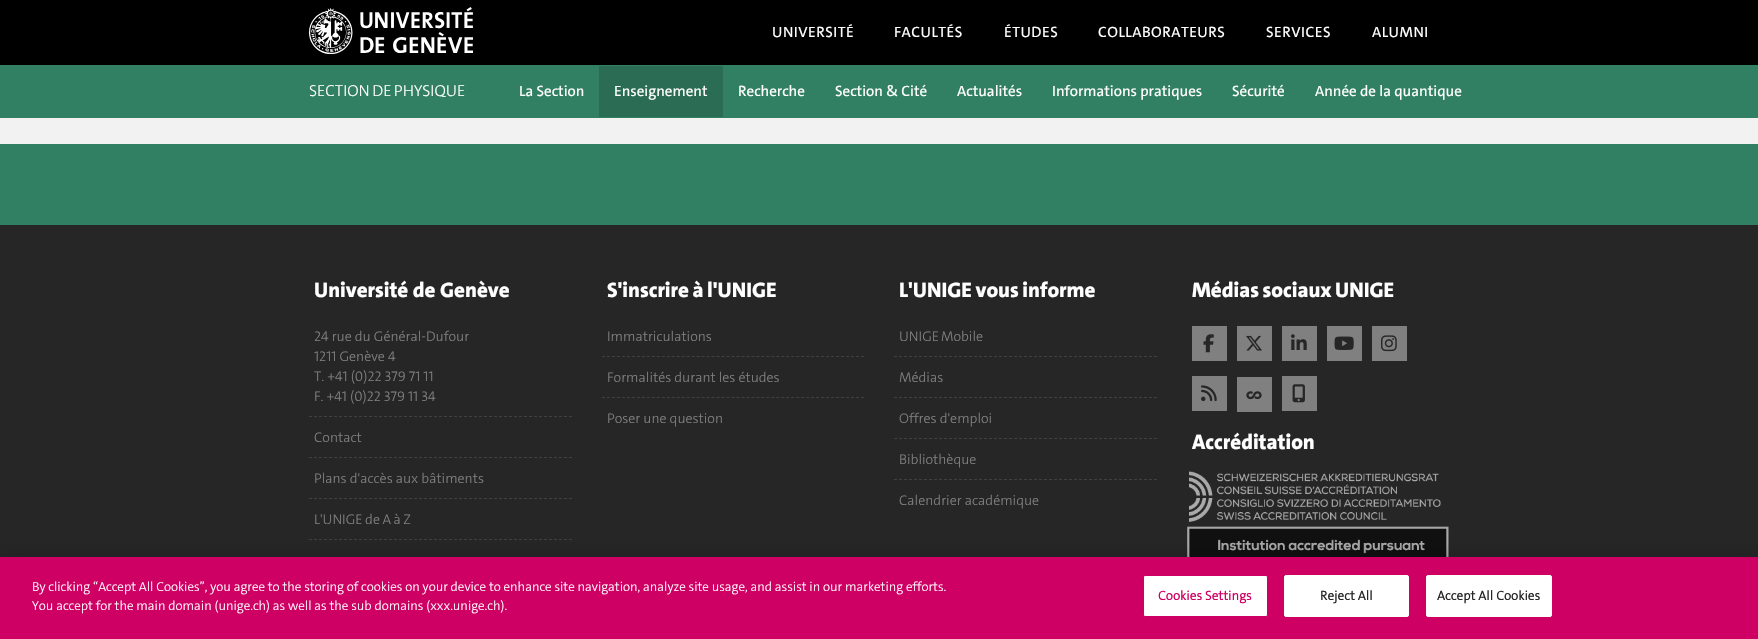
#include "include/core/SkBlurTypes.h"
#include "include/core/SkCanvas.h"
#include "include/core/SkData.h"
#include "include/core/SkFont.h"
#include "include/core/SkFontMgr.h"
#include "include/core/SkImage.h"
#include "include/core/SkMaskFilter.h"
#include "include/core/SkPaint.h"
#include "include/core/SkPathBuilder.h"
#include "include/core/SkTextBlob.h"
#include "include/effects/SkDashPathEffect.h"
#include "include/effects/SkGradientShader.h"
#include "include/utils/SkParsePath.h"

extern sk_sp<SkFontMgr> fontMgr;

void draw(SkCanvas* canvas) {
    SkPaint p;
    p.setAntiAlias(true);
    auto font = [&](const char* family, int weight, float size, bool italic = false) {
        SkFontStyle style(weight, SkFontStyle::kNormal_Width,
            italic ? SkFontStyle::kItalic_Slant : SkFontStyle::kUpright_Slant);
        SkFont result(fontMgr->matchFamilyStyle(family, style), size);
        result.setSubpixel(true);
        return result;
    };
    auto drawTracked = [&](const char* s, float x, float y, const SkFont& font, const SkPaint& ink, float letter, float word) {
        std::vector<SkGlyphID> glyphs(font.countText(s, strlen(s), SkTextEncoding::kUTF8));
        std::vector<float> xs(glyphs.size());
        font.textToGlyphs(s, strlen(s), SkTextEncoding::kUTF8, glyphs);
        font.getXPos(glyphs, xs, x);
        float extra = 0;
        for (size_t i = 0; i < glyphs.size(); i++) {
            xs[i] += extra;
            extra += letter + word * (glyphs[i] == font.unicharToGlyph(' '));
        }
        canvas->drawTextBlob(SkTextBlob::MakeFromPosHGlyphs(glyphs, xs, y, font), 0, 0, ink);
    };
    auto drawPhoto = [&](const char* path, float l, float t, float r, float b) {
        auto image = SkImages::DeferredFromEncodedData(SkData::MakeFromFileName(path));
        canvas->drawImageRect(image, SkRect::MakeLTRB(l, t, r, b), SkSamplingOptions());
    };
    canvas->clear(0xFFF2F2F2);
    p.setColor(0xFF000000);
    canvas->drawRect(SkRect::MakeLTRB(0, 0, 1758, 65), p);
    drawPhoto("media/1.png", 309, 7, 473, 54);
    auto font1 = font("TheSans", 400, 15);
    p.setColor(0xFFFFFFFF);
    {
        const struct { const char* s; float x, y; } items[] = {
            {"UNIVERSITÉ", 772, 37},
            {"FACULTÉS", 894, 37},
            {"ÉTUDES", 1004, 37},
            {"COLLABORATEURS", 1098, 37},
            {"SERVICES", 1266, 37},
            {"ALUMNI", 1372, 37},
        };
        for (auto [s, x, y] : items) {
            drawTracked(s, x, y, font1, p, 0.5f, 0);
        }
    }
    p.setColor(0xFF318063);
    canvas->drawRect(SkRect::MakeLTRB(0, 65, 1758, 118), p);
    canvas->save();
    canvas->clipRect(SkRect::MakeLTRB(309, 83, 467, 99));
    auto font2 = font("TheSans", 300, 16);
    p.setColor(0xFFFFFFFF);
    drawTracked("SECTION DE PHYSIQUE", 309, 96, font2, p, 0, -1);
    canvas->restore();
    canvas->drawString("La Section", 519, 96, font1, p);
    p.setColor(0xFF2A6D54);
    canvas->drawRect(SkRect::MakeLTRB(599, 66, 723, 117), p);
    p.setColor(0xFFFFFFFF);
    {
        const struct { const char* s; float x, y; } items[] = {
            {"Enseignement", 614, 96},
            {"Recherche", 738, 96},
            {"Section & Cité", 835, 96},
            {"Actualités", 957, 96},
            {"Informations pratiques", 1052, 96},
            {"Sécurité", 1232, 96},
            {"Année de la quantique", 1315, 96},
        };
        for (auto [s, x, y] : items) {
            canvas->drawString(s, x, y, font1, p);
        }
    }
    p.setColor(0xFF318063);
    canvas->drawRect(SkRect::MakeLTRB(0, 144, 1758, 225), p);
    p.setColor(0xFF262626);
    canvas->drawRect(SkRect::MakeLTRB(0, 225, 1758, 557), p);
    auto font3 = font("TheSans", 800, 21);
    p.setColor(0xFFFFFFFF);
    canvas->drawString("Université de Genève", 314, 297, font3, p);
    p.setStyle(SkPaint::kStroke_Style);
    p.setStrokeWidth(1);
    p.setColor(0xFF404040);
    p.setPathEffect(SkDashPathEffect::Make({{3, 2}}, 0));
    canvas->drawPath(SkPathBuilder().moveTo(309, 416.5f).lineTo(572, 416.5f).detach(), p);
    p.setPathEffect(nullptr);
    auto font4 = font("TheSans", 300, 14);
    p.setStyle(SkPaint::kFill_Style);
    p.setColor(0xFF808080);
    {
        const struct { const char* s; float x, y; } items[] = {
            {"24 rue du Général-Dufour", 314, 341},
            {"1211 Genève 4", 314, 361},
            {"T. +41 (0)22 379 71 11", 314, 381},
            {"F. +41 (0)22 379 11 34", 314, 401},
        };
        for (auto [s, x, y] : items) {
            canvas->drawString(s, x, y, font4, p);
        }
    }
    p.setStyle(SkPaint::kStroke_Style);
    p.setColor(0xFF404040);
    p.setPathEffect(SkDashPathEffect::Make({{3, 2}}, 0));
    canvas->drawPath(SkPathBuilder().moveTo(309, 457.5f).lineTo(572, 457.5f).detach(), p);
    p.setPathEffect(nullptr);
    p.setStyle(SkPaint::kFill_Style);
    p.setColor(0xFF808080);
    canvas->drawString("Contact", 314, 442, font4, p);
    p.setStyle(SkPaint::kStroke_Style);
    p.setColor(0xFF404040);
    p.setPathEffect(SkDashPathEffect::Make({{3, 2}}, 0));
    canvas->drawPath(SkPathBuilder().moveTo(309, 498.5f).lineTo(572, 498.5f).detach(), p);
    p.setPathEffect(nullptr);
    p.setStyle(SkPaint::kFill_Style);
    p.setColor(0xFF808080);
    canvas->drawString("Plans d'accès aux bâtiments", 314, 483, font4, p);
    p.setStyle(SkPaint::kStroke_Style);
    p.setColor(0xFF404040);
    p.setPathEffect(SkDashPathEffect::Make({{3, 2}}, 0));
    canvas->drawPath(SkPathBuilder().moveTo(309, 539.5f).lineTo(572, 539.5f).detach(), p);
    p.setPathEffect(nullptr);
    p.setStyle(SkPaint::kFill_Style);
    p.setColor(0xFF808080);
    drawTracked("L'UNIGE de A à Z", 314, 524, font4, p, 0, -0.5f);
    p.setColor(0xFFFFFFFF);
    drawTracked("S'inscrire à l'UNIGE", 607, 297, font3, p, 0, -1);
    p.setStyle(SkPaint::kStroke_Style);
    p.setColor(0xFF404040);
    p.setPathEffect(SkDashPathEffect::Make({{3, 1.98f}}, 0));
    canvas->drawPath(SkPathBuilder().moveTo(602, 356.5f).lineTo(864, 356.5f).detach(), p);
    p.setPathEffect(nullptr);
    p.setStyle(SkPaint::kFill_Style);
    p.setColor(0xFF808080);
    canvas->drawString("Immatriculations", 607, 341, font4, p);
    p.setStyle(SkPaint::kStroke_Style);
    p.setColor(0xFF404040);
    p.setPathEffect(SkDashPathEffect::Make({{3, 1.98f}}, 0));
    canvas->drawPath(SkPathBuilder().moveTo(602, 397.5f).lineTo(864, 397.5f).detach(), p);
    p.setPathEffect(nullptr);
    p.setStyle(SkPaint::kFill_Style);
    p.setColor(0xFF808080);
    canvas->drawString("Formalités durant les études", 607, 382, font4, p);
    canvas->drawString("Poser une question", 607, 423, font4, p);
    p.setColor(0xFFFFFFFF);
    drawTracked("L'UNIGE vous informe", 899, 297, font3, p, 0, -1);
    p.setStyle(SkPaint::kStroke_Style);
    p.setColor(0xFF404040);
    p.setPathEffect(SkDashPathEffect::Make({{3, 2}}, 0));
    canvas->drawPath(SkPathBuilder().moveTo(894, 356.5f).lineTo(1157, 356.5f).detach(), p);
    p.setPathEffect(nullptr);
    p.setStyle(SkPaint::kFill_Style);
    p.setColor(0xFF808080);
    drawTracked("UNIGE Mobile", 899, 341, font4, p, 0, -1);
    p.setStyle(SkPaint::kStroke_Style);
    p.setColor(0xFF404040);
    p.setPathEffect(SkDashPathEffect::Make({{3, 2}}, 0));
    canvas->drawPath(SkPathBuilder().moveTo(894, 397.5f).lineTo(1157, 397.5f).detach(), p);
    p.setPathEffect(nullptr);
    p.setStyle(SkPaint::kFill_Style);
    p.setColor(0xFF808080);
    canvas->drawString("Médias", 899, 382, font4, p);
    p.setStyle(SkPaint::kStroke_Style);
    p.setColor(0xFF404040);
    p.setPathEffect(SkDashPathEffect::Make({{3, 2}}, 0));
    canvas->drawPath(SkPathBuilder().moveTo(894, 438.5f).lineTo(1157, 438.5f).detach(), p);
    p.setPathEffect(nullptr);
    p.setStyle(SkPaint::kFill_Style);
    p.setColor(0xFF808080);
    canvas->drawString("Offres d'emploi", 899, 423, font4, p);
    p.setStyle(SkPaint::kStroke_Style);
    p.setColor(0xFF404040);
    p.setPathEffect(SkDashPathEffect::Make({{3, 2}}, 0));
    canvas->drawPath(SkPathBuilder().moveTo(894, 479.5f).lineTo(1157, 479.5f).detach(), p);
    p.setPathEffect(nullptr);
    p.setStyle(SkPaint::kFill_Style);
    p.setColor(0xFF808080);
    canvas->drawString("Bibliothèque", 899, 464, font4, p);
    canvas->drawString("Calendrier académique", 899, 505, font4, p);
    p.setColor(0xFFFFFFFF);
    drawTracked("Médias sociaux UNIGE", 1192, 297, font3, p, 0, -1);
    p.setColor(0xFF808080);
    canvas->drawRect(SkRect::MakeLTRB(1192, 326, 1227, 361), p);
    drawPhoto("media/2.png", 1203, 334, 1214, 353);
    canvas->drawRect(SkRect::MakeLTRB(1237, 326, 1272, 361), p);
    drawPhoto("media/3.png", 1246, 335, 1262, 351);
    canvas->drawRect(SkRect::MakeLTRB(1282, 326, 1317, 361), p);
    drawPhoto("media/4.png", 1291, 334, 1307, 350);
    canvas->drawRect(SkRect::MakeLTRB(1327, 326, 1362, 361), p);
    drawPhoto("media/5.png", 1334, 336, 1354, 350);
    canvas->drawRect(SkRect::MakeLTRB(1372, 326, 1407, 361), p);
    drawPhoto("media/6.png", 1381, 335, 1397, 352);
    canvas->drawRect(SkRect::MakeLTRB(1192, 376, 1227, 411), p);
    drawPhoto("media/7.png", 1201, 385, 1217, 402);
    canvas->drawRect(SkRect::MakeLTRB(1237, 377, 1272, 412), p);
    drawPhoto("media/8.png", 1246, 391, 1262, 400);
    canvas->drawRect(SkRect::MakeLTRB(1282, 376, 1317, 411), p);
    drawPhoto("media/9.png", 1292, 384, 1305, 403);
    p.setColor(0xFFFFFFFF);
    canvas->drawString("Accréditation", 1192, 449, font3, p);
    drawPhoto("media/10.png", 1187, 471, 1449, 557);
    p.setColor(0x33000000);
    p.setMaskFilter(SkMaskFilter::MakeBlur(kNormal_SkBlurStyle, 9));
    canvas->drawRect(SkRect::MakeLTRB(0, 557, 1758, 639), p);
    p.setMaskFilter(nullptr);
    p.setColor(0xFFCF0063);
    canvas->drawRect(SkRect::MakeLTRB(0, 557, 1758, 639), p);
    auto font5 = font("TheSans", 300, 13);
    p.setColor(0xFFFFFFFF);
    canvas->drawString("By clicking “Accept All Cookies”, you agree to the storing of cookies on your device to enhance site navigation, analyze site usage, and assist in our marketing efforts.", 32, 591, font5, p);
    canvas->drawString("You accept for the main domain (unige.ch) as well as the sub domains (xxx.unige.ch).", 32, 610, font5, p);
    canvas->drawRoundRect(SkRect::MakeLTRB(1143.5f, 575.5f, 1267.5f, 616.5f), 1.5f, 1.5f, p);
    p.setStyle(SkPaint::kStroke_Style);
    p.setColor(0xFFCF0063);
    canvas->drawRoundRect(SkRect::MakeLTRB(1143.5f, 575.5f, 1267.5f, 616.5f), 1.5f, 1.5f, p);
    auto font6 = font("TheSans", 700, 13);
    p.setStyle(SkPaint::kFill_Style);
    drawTracked("Cookies Settings", 1158, 600, font6, p, 0.1f, 0);
    p.setColor(0xFFFFFFFF);
    canvas->drawRoundRect(SkRect::MakeLTRB(1284.5f, 575.5f, 1408.5f, 616.5f), 1.5f, 1.5f, p);
    p.setStyle(SkPaint::kStroke_Style);
    canvas->drawRoundRect(SkRect::MakeLTRB(1284.5f, 575.5f, 1408.5f, 616.5f), 1.5f, 1.5f, p);
    p.setStyle(SkPaint::kFill_Style);
    p.setColor(0xFF262626);
    drawTracked("Reject All", 1320, 600, font6, p, 0.1f, 0);
    p.setColor(0xFFFFFFFF);
    canvas->drawRoundRect(SkRect::MakeLTRB(1426.5f, 575.5f, 1551.5f, 616.5f), 1.5f, 1.5f, p);
    p.setStyle(SkPaint::kStroke_Style);
    canvas->drawRoundRect(SkRect::MakeLTRB(1426.5f, 575.5f, 1551.5f, 616.5f), 1.5f, 1.5f, p);
    p.setStyle(SkPaint::kFill_Style);
    p.setColor(0xFF262626);
    drawTracked("Accept All Cookies", 1437, 600, font6, p, 0.1f, 0);
}
